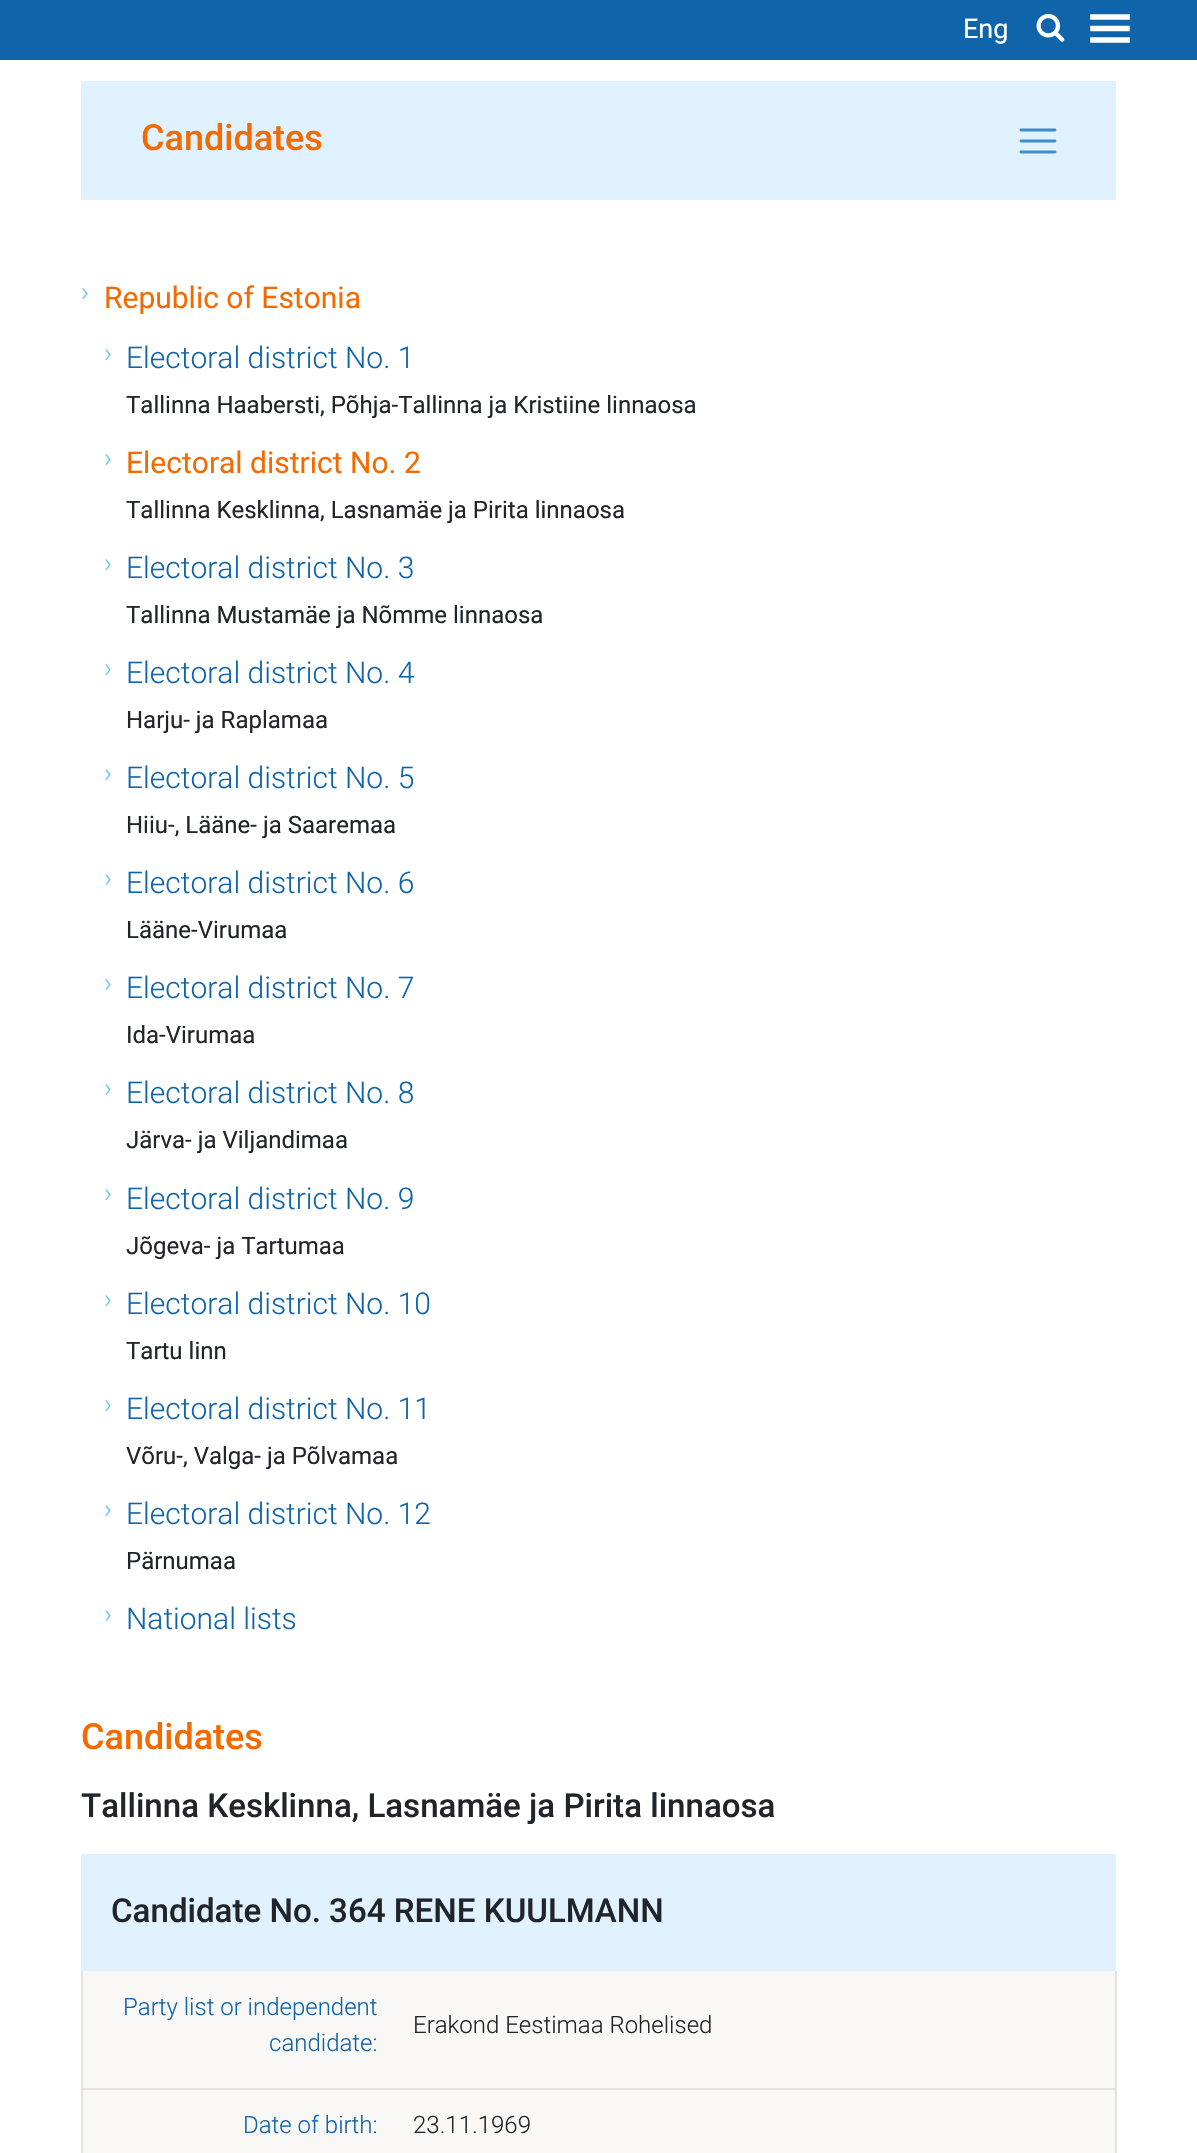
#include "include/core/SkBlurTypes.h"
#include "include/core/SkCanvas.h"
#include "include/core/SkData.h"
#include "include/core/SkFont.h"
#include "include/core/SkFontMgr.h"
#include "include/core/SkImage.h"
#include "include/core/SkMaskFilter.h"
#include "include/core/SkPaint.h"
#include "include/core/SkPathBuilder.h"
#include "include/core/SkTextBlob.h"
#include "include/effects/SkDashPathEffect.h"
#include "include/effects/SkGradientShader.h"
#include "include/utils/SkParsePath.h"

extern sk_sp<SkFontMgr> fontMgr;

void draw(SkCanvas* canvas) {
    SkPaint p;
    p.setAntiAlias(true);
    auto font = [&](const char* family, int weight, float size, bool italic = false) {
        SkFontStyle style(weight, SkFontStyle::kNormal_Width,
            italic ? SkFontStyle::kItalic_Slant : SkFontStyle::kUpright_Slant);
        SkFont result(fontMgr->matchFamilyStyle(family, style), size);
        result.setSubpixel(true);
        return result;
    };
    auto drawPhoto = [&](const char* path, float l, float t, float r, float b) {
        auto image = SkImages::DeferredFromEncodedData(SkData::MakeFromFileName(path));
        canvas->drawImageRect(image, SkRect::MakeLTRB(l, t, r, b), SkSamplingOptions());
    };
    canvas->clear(0xFFFFFFFF);
    p.setColor(0xFF0F64AA);
    canvas->drawRect(SkRect::MakeLTRB(0, 0, 1197, 60), p);
    auto font1 = font("Roboto", 400, 27);
    p.setColor(0xFFFFFFFF);
    canvas->drawString("Eng", 963, 38, font1, p);
    drawPhoto("media/1.png", 1036, 13, 1065, 42);
    p.setStyle(SkPaint::kStroke_Style);
    p.setStrokeWidth(5.6f);
    p.setStrokeCap(SkPaint::kSquare_Cap);
    canvas->drawPath(SkPathBuilder().moveTo(1093, 17).lineTo(1127, 17).moveTo(1093, 28.5f).lineTo(1127, 28.5f).moveTo(1093, 40).lineTo(1127, 40).detach(), p);
    p.setStyle(SkPaint::kFill_Style);
    p.setColor(0xFFE0F1FF);
    canvas->drawRect(SkRect::MakeLTRB(81, 81, 1116, 200), p);
    auto font2 = font("Roboto", 500, 36);
    p.setColor(0xFFF36A00);
    canvas->drawString("Candidates", 141, 150, font2, p);
    p.setStyle(SkPaint::kStroke_Style);
    p.setStrokeWidth(2.8f);
    p.setStrokeCap(SkPaint::kRound_Cap);
    p.setColor(0xFF428BCA);
    canvas->drawPath(SkPathBuilder().moveTo(1021, 130).lineTo(1055, 130).moveTo(1021, 141).lineTo(1055, 141).moveTo(1021, 152).lineTo(1055, 152).detach(), p);
    auto font3 = font("Roboto", 300, 27);
    p.setStyle(SkPaint::kFill_Style);
    p.setColor(0xFF6CC5E7);
    canvas->drawString("›", 81, 301, font3, p);
    auto font4 = font("Roboto", 400, 30);
    p.setColor(0xFFF36A00);
    canvas->drawString("Republic of Estonia", 104, 308, font4, p);
    p.setColor(0xFF6CC5E7);
    canvas->drawString("›", 104, 362, font3, p);
    auto font5 = font("Roboto", 300, 30);
    p.setColor(0xFF0F64AA);
    canvas->drawString("Electoral district No. 1", 126, 368, font5, p);
    auto font6 = font("Roboto", 400, 24);
    p.setColor(0xFF212529);
    canvas->drawString("Tallinna Haabersti, Põhja-Tallinna ja Kristiine linnaosa", 126, 413, font6, p);
    p.setColor(0xFF6CC5E7);
    canvas->drawString("›", 104, 467, font3, p);
    p.setColor(0xFFF36A00);
    canvas->drawString("Electoral district No. 2", 126, 473, font4, p);
    p.setColor(0xFF212529);
    canvas->drawString("Tallinna Kesklinna, Lasnamäe ja Pirita linnaosa", 126, 518, font6, p);
    p.setColor(0xFF6CC5E7);
    canvas->drawString("›", 104, 572, font3, p);
    p.setColor(0xFF0F64AA);
    canvas->drawString("Electoral district No. 3", 126, 578, font5, p);
    p.setColor(0xFF212529);
    canvas->drawString("Tallinna Mustamäe ja Nõmme linnaosa", 126, 623, font6, p);
    p.setColor(0xFF6CC5E7);
    canvas->drawString("›", 104, 677, font3, p);
    p.setColor(0xFF0F64AA);
    canvas->drawString("Electoral district No. 4", 126, 683, font5, p);
    p.setColor(0xFF212529);
    canvas->drawString("Harju- ja Raplamaa", 126, 728, font6, p);
    p.setColor(0xFF6CC5E7);
    canvas->drawString("›", 104, 782, font3, p);
    p.setColor(0xFF0F64AA);
    canvas->drawString("Electoral district No. 5", 126, 788, font5, p);
    p.setColor(0xFF212529);
    canvas->drawString("Hiiu-, Lääne- ja Saaremaa", 126, 833, font6, p);
    p.setColor(0xFF6CC5E7);
    canvas->drawString("›", 104, 887, font3, p);
    p.setColor(0xFF0F64AA);
    canvas->drawString("Electoral district No. 6", 126, 893, font5, p);
    p.setColor(0xFF212529);
    canvas->drawString("Lääne-Virumaa", 126, 938, font6, p);
    p.setColor(0xFF6CC5E7);
    canvas->drawString("›", 104, 992, font3, p);
    p.setColor(0xFF0F64AA);
    canvas->drawString("Electoral district No. 7", 126, 998, font5, p);
    p.setColor(0xFF212529);
    canvas->drawString("Ida-Virumaa", 126, 1043, font6, p);
    p.setColor(0xFF6CC5E7);
    canvas->drawString("›", 104, 1097, font3, p);
    p.setColor(0xFF0F64AA);
    canvas->drawString("Electoral district No. 8", 126, 1103, font5, p);
    p.setColor(0xFF212529);
    canvas->drawString("Järva- ja Viljandimaa", 126, 1148, font6, p);
    p.setColor(0xFF6CC5E7);
    canvas->drawString("›", 104, 1202, font3, p);
    p.setColor(0xFF0F64AA);
    canvas->drawString("Electoral district No. 9", 126, 1209, font5, p);
    p.setColor(0xFF212529);
    canvas->drawString("Jõgeva- ja Tartumaa", 126, 1254, font6, p);
    p.setColor(0xFF6CC5E7);
    canvas->drawString("›", 104, 1308, font3, p);
    p.setColor(0xFF0F64AA);
    canvas->drawString("Electoral district No. 10", 126, 1314, font5, p);
    p.setColor(0xFF212529);
    canvas->drawString("Tartu linn", 126, 1359, font6, p);
    p.setColor(0xFF6CC5E7);
    canvas->drawString("›", 104, 1413, font3, p);
    p.setColor(0xFF0F64AA);
    canvas->drawString("Electoral district No. 11", 126, 1419, font5, p);
    p.setColor(0xFF212529);
    canvas->drawString("Võru-, Valga- ja Põlvamaa", 126, 1464, font6, p);
    p.setColor(0xFF6CC5E7);
    canvas->drawString("›", 104, 1518, font3, p);
    p.setColor(0xFF0F64AA);
    canvas->drawString("Electoral district No. 12", 126, 1524, font5, p);
    p.setColor(0xFF212529);
    canvas->drawString("Pärnumaa", 126, 1569, font6, p);
    p.setColor(0xFF6CC5E7);
    canvas->drawString("›", 104, 1623, font3, p);
    p.setColor(0xFF0F64AA);
    canvas->drawString("National lists", 126, 1629, font5, p);
    p.setColor(0xFFF36A00);
    canvas->drawString("Candidates", 81, 1749, font2, p);
    auto font7 = font("Roboto", 500, 33.1f);
    p.setColor(0xFF212529);
    canvas->drawString("Tallinna Kesklinna, Lasnamäe ja Pirita linnaosa", 81, 1817, font7, p);
    p.setColor(0xFFE0F1FF);
    canvas->drawRect(SkRect::MakeLTRB(81, 1854, 1116, 1971), p);
    p.setColor(0xFF212529);
    canvas->drawString("Candidate No. 364 RENE KUULMANN", 111, 1922, font7, p);
    {
        const struct { float l, t, r, b; SkColor color; } items[] = {
            {83, 1971, 1115, 2153, 0xFFF9F8F6},
            {1115, 1971, 1117, 2153, 0xFFE3E2E2},
            {81, 1971, 83, 2153, 0xFFE3E2E2},
            {81, 2088, 1116, 2090, 0xFFE3E2E2},
        };
        for (auto [l, t, r, b, color] : items) {
            p.setColor(color);
            canvas->drawRect(SkRect::MakeLTRB(l, t, r, b), p);
        }
    }
    auto font8 = font("Roboto", 300, 24);
    p.setColor(0xFF0F64AA);
    canvas->drawString("Party list or independent", 123, 2015, font8, p);
    canvas->drawString("candidate:", 269, 2051, font8, p);
    p.setColor(0xFF212529);
    canvas->drawString("Erakond Eestimaa Rohelised", 413, 2033, font8, p);
    p.setColor(0xFF0F64AA);
    canvas->drawString("Date of birth:", 243, 2133, font8, p);
    p.setColor(0xFF212529);
    canvas->drawString("23.11.1969", 413, 2133, font8, p);
}
